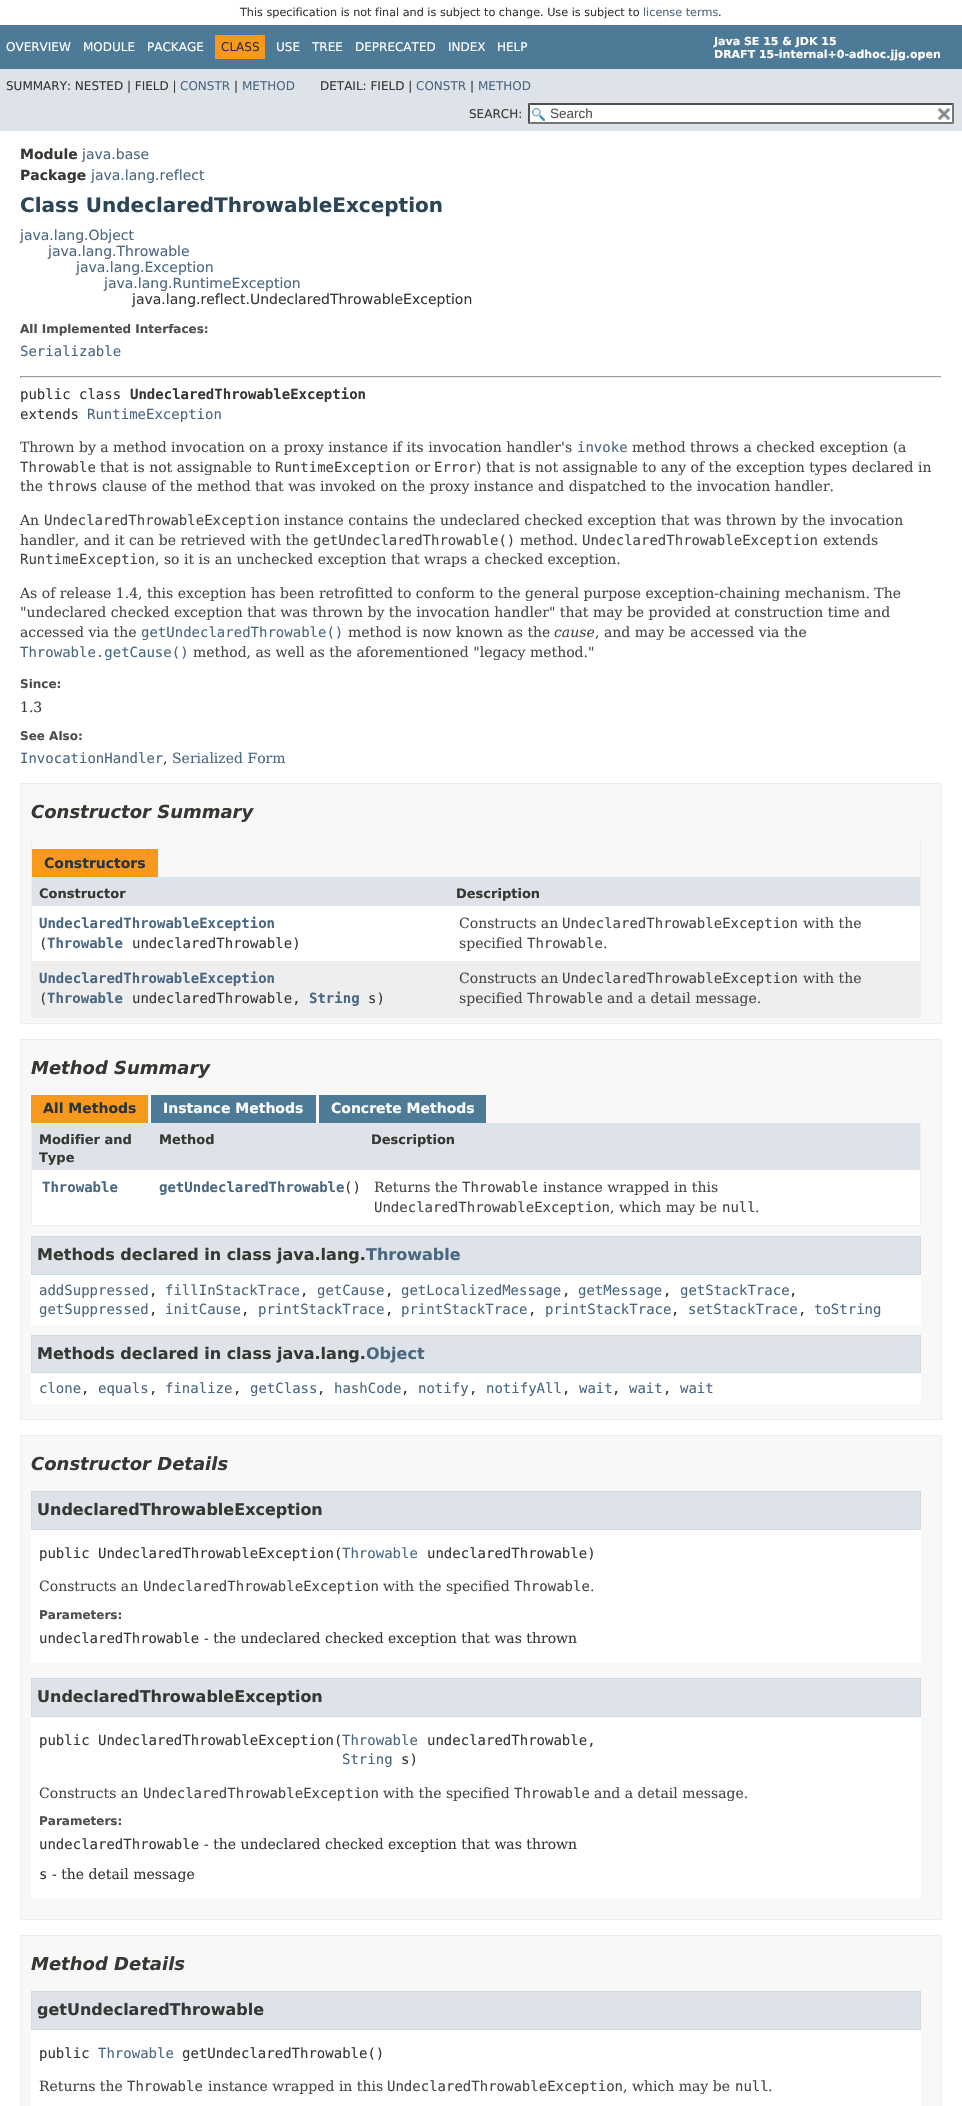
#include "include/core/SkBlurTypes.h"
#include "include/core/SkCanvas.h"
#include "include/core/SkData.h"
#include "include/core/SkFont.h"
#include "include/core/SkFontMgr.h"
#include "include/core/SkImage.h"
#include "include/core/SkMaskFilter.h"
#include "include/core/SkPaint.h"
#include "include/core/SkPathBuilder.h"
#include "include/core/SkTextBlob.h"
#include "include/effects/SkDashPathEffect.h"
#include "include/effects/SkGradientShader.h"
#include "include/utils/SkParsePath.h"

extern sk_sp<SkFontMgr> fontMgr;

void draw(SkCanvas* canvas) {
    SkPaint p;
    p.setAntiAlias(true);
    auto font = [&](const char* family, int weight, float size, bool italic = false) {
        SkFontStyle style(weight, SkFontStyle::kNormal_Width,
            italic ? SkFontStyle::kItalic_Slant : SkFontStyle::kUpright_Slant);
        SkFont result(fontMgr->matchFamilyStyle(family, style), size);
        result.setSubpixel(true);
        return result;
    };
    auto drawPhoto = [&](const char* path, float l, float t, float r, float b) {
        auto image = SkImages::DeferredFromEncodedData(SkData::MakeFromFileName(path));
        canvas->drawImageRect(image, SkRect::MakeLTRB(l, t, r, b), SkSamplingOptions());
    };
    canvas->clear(0xFFFFFFFF);
    auto font1 = font("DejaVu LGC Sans", 400, 11.2f);
    p.setColor(0xFF353833);
    canvas->drawString("This specification is not final and is subject to change. Use is subject to", 240, 16, font1, p);
    p.setColor(0xFF4A6782);
    canvas->drawString("license terms", 643, 16, font1, p);
    p.setColor(0xFF353833);
    canvas->drawString(".", 718, 16, font1, p);
    p.setColor(0xFF4D7A97);
    canvas->drawRect(SkRect::MakeLTRB(0, 25, 962, 69), p);
    auto font2 = font("DejaVu LGC Sans", 400, 12);
    p.setColor(0xFFFFFFFF);
    {
        const struct { const char* s; float x, y; } items[] = {
            {"OVERVIEW", 6, 51},
            {"MODULE", 83, 51},
            {"PACKAGE", 147, 51},
        };
        for (auto [s, x, y] : items) {
            canvas->drawString(s, x, y, font2, p);
        }
    }
    p.setColor(0xFFF8981D);
    canvas->drawRect(SkRect::MakeLTRB(215, 35, 265, 59), p);
    p.setColor(0xFF253441);
    canvas->drawString("CLASS", 221, 51, font2, p);
    p.setColor(0xFFFFFFFF);
    {
        const struct { const char* s; float x, y; } items[] = {
            {"USE", 276, 51},
            {"TREE", 312, 51},
            {"DEPRECATED", 355, 51},
            {"INDEX", 448, 51},
            {"HELP", 497, 51},
        };
        for (auto [s, x, y] : items) {
            canvas->drawString(s, x, y, font2, p);
        }
    }
    auto font3 = font("DejaVu LGC Sans", 700, 11);
    canvas->drawString("Java SE 15 & JDK 15", 714, 45, font3, p);
    canvas->drawString("DRAFT 15-internal+0-adhoc.jjg.open", 714, 58, font3, p);
    p.setColor(0xFFDEE3E9);
    canvas->drawRect(SkRect::MakeLTRB(0, 69, 962, 131), p);
    p.setColor(0xFF353833);
    canvas->drawString("SUMMARY: NESTED | FIELD |", 6, 90, font2, p);
    p.setColor(0xFF4A6782);
    canvas->drawString("CONSTR", 180, 90, font2, p);
    p.setColor(0xFF353833);
    canvas->drawString("|", 234, 90, font2, p);
    p.setColor(0xFF4A6782);
    canvas->drawString("METHOD", 242, 90, font2, p);
    p.setColor(0xFF353833);
    canvas->drawString("DETAIL: FIELD |", 320, 90, font2, p);
    p.setColor(0xFF4A6782);
    canvas->drawString("CONSTR", 416, 90, font2, p);
    p.setColor(0xFF353833);
    canvas->drawString("|", 470, 90, font2, p);
    p.setColor(0xFF4A6782);
    canvas->drawString("METHOD", 478, 90, font2, p);
    p.setColor(0xFF353833);
    canvas->drawString("SEARCH:", 469, 118, font2, p);
    p.setColor(0xFFFFFFFF);
    canvas->drawRect(SkRect::MakeLTRB(528, 103, 954, 124), p);
    drawPhoto("media/1.png", 532, 108, 545, 121);
    p.setColor(0xFF4F4F4F);
    canvas->drawPath(SkPathBuilder().moveTo(528, 103).lineTo(954, 103).lineTo(952, 105).lineTo(530, 105).close().detach(), p);
    p.setColor(0xFF767676);
    canvas->drawPath(SkPathBuilder().moveTo(954, 103).lineTo(954, 124).lineTo(952, 122).lineTo(952, 105).close().detach(), p);
    canvas->drawPath(SkPathBuilder().moveTo(954, 124).lineTo(528, 124).lineTo(530, 122).lineTo(952, 122).close().detach(), p);
    p.setColor(0xFF4F4F4F);
    canvas->drawPath(SkPathBuilder().moveTo(528, 124).lineTo(528, 103).lineTo(530, 105).lineTo(530, 122).close().detach(), p);
    auto font4 = font("Liberation Sans", 400, 13.5f);
    p.setColor(0xFF545454);
    canvas->drawString("Search", 550, 118, font4, p);
    drawPhoto("media/2.png", 937, 108, 951, 120);
    auto font5 = font("DejaVu LGC Sans", 700, 14);
    p.setColor(0xFF353833);
    canvas->drawString("Module", 20, 159, font5, p);
    auto font6 = font("DejaVu LGC Sans", 400, 14);
    p.setColor(0xFF4A6782);
    canvas->drawString("java.base", 82, 159, font6, p);
    p.setColor(0xFF353833);
    canvas->drawString("Package", 20, 180, font5, p);
    p.setColor(0xFF4A6782);
    canvas->drawString("java.lang.reflect", 91, 180, font6, p);
    auto font7 = font("DejaVu LGC Sans", 700, 20);
    p.setColor(0xFF2C4557);
    canvas->drawString("Class UndeclaredThrowableException", 20, 212, font7, p);
    p.setColor(0xFF4A6782);
    {
        const struct { const char* s; float x, y; } items[] = {
            {"java.lang.Object", 20, 240},
            {"java.lang.Throwable", 48, 256},
            {"java.lang.Exception", 76, 272},
            {"java.lang.RuntimeException", 104, 288},
        };
        for (auto [s, x, y] : items) {
            canvas->drawString(s, x, y, font6, p);
        }
    }
    p.setColor(0xFF353833);
    canvas->drawString("java.lang.reflect.UndeclaredThrowableException", 132, 304, font6, p);
    auto font8 = font("DejaVu LGC Sans", 700, 12);
    p.setColor(0xFF4E4E4E);
    canvas->drawString("All Implemented Interfaces:", 20, 333, font8, p);
    auto font9 = font("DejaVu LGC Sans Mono", 400, 14);
    p.setColor(0xFF4A6782);
    canvas->drawString("Serializable", 20, 356, font9, p);
    {
        const struct { float l, t, r, b; SkColor color; } items[] = {
            {20, 376, 942, 377, 0xFF9F9F9F},
            {941, 376, 942, 378, 0xFFEEEEEE},
            {20, 377, 942, 378, 0xFFEEEEEE},
            {20, 376, 21, 378, 0xFF9F9F9F},
        };
        for (auto [l, t, r, b, color] : items) {
            p.setColor(color);
            canvas->drawRect(SkRect::MakeLTRB(l, t, r, b), p);
        }
    }
    p.setColor(0xFF353833);
    canvas->drawString("public class", 20, 399, font9, p);
    auto font10 = font("DejaVu LGC Sans Mono", 700, 14);
    canvas->drawString("UndeclaredThrowableException", 130, 399, font10, p);
    canvas->drawString("extends", 20, 419, font9, p);
    p.setColor(0xFF4A6782);
    canvas->drawString("RuntimeException", 87, 419, font9, p);
    auto font11 = font("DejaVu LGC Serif", 400, 14);
    p.setColor(0xFF474747);
    canvas->drawString("Thrown by a method invocation on a proxy instance if its invocation handler's", 20, 452, font11, p);
    p.setColor(0xFF4A6782);
    canvas->drawString("invoke", 577, 452, font9, p);
    p.setColor(0xFF474747);
    canvas->drawString("method throws a checked exception (a", 632, 452, font11, p);
    canvas->drawString("Throwable", 20, 472, font9, p);
    canvas->drawString("that is not assignable to", 100, 472, font11, p);
    canvas->drawString("RuntimeException", 275, 472, font9, p);
    canvas->drawString("or", 415, 472, font11, p);
    canvas->drawString("Error", 434, 472, font9, p);
    canvas->drawString(") that is not assignable to any of the exception types declared in", 476, 472, font11, p);
    canvas->drawString("the", 20, 491, font11, p);
    canvas->drawString("throws", 47, 491, font9, p);
    canvas->drawString("clause of the method that was invoked on the proxy instance and dispatched to the invocation handler.", 102, 491, font11, p);
    canvas->drawString("An", 20, 525, font11, p);
    canvas->drawString("UndeclaredThrowableException", 44, 525, font9, p);
    canvas->drawString("instance contains the undeclared checked exception that was thrown by the invocation", 284, 525, font11, p);
    canvas->drawString("handler, and it can be retrieved with the", 20, 545, font11, p);
    canvas->drawString("getUndeclaredThrowable()", 313, 545, font9, p);
    canvas->drawString("method.", 520, 545, font11, p);
    canvas->drawString("UndeclaredThrowableException", 582, 545, font9, p);
    canvas->drawString("extends", 823, 545, font11, p);
    canvas->drawString("RuntimeException", 20, 564, font9, p);
    {
        const struct { const char* s; float x, y; } items[] = {
            {", so it is an unchecked exception that wraps a checked exception.", 155, 564},
            {"As of release 1.4, this exception has been retrofitted to conform to the general purpose exception-chaining mechanism. The", 20, 598},
            {"\"undeclared checked exception that was thrown by the invocation handler\" that may be provided at construction time and", 20, 617},
            {"accessed via the", 20, 637},
        };
        for (auto [s, x, y] : items) {
            canvas->drawString(s, x, y, font11, p);
        }
    }
    p.setColor(0xFF4A6782);
    canvas->drawString("getUndeclaredThrowable()", 141, 637, font9, p);
    p.setColor(0xFF474747);
    canvas->drawString("method is now known as the", 348, 637, font11, p);
    auto font12 = font("DejaVu LGC Serif", 400, 14, true);
    canvas->drawString("cause", 554, 637, font12, p);
    canvas->drawString(", and may be accessed via the", 595, 637, font11, p);
    p.setColor(0xFF4A6782);
    canvas->drawString("Throwable.getCause()", 20, 657, font9, p);
    p.setColor(0xFF474747);
    canvas->drawString("method, as well as the aforementioned \"legacy method.\"", 193, 657, font11, p);
    p.setColor(0xFF4E4E4E);
    canvas->drawString("Since:", 20, 688, font8, p);
    p.setColor(0xFF353833);
    canvas->drawString("1.3", 20, 712, font11, p);
    p.setColor(0xFF4E4E4E);
    canvas->drawString("See Also:", 20, 740, font8, p);
    p.setColor(0xFF4A6782);
    canvas->drawString("InvocationHandler", 20, 763, font9, p);
    p.setColor(0xFF353833);
    canvas->drawString(",", 163, 763, font11, p);
    p.setColor(0xFF4A6782);
    canvas->drawString("Serialized Form", 172, 763, font11, p);
    p.setColor(0xFFF8F8F8);
    canvas->drawRect(SkRect::MakeLTRB(20.5f, 783.5f, 941.5f, 1023.5f), p);
    p.setStyle(SkPaint::kStroke_Style);
    p.setStrokeWidth(1);
    p.setColor(0xFFEDEDED);
    canvas->drawRect(SkRect::MakeLTRB(20.5f, 783.5f, 941.5f, 1023.5f), p);
    auto font13 = font("DejaVu LGC Sans", 700, 18, true);
    p.setStyle(SkPaint::kFill_Style);
    p.setColor(0xFF353833);
    canvas->drawString("Constructor Summary", 31, 818, font13, p);
    {
        const struct { float l, t, r, b; SkColor color; } items[] = {
            {920, 839, 921, 1018, 0xFFEEEEEE},
            {31, 1017, 921, 1018, 0xFFEEEEEE},
            {31, 839, 32, 1018, 0xFFEEEEEE},
            {32, 849, 158, 877, 0xFFF8981D},
        };
        for (auto [l, t, r, b, color] : items) {
            p.setColor(color);
            canvas->drawRect(SkRect::MakeLTRB(l, t, r, b), p);
        }
    }
    p.setColor(0xFF253441);
    canvas->drawString("Constructors", 44, 868, font5, p);
    p.setColor(0xFFDEE3E9);
    canvas->drawRect(SkRect::MakeLTRB(32, 877, 920, 906), p);
    auto font14 = font("DejaVu LGC Sans", 700, 13);
    p.setColor(0xFF353833);
    canvas->drawString("Constructor", 39, 898, font14, p);
    canvas->drawString("Description", 456, 898, font14, p);
    p.setColor(0xFFFFFFFF);
    canvas->drawRect(SkRect::MakeLTRB(32, 906, 920, 961), p);
    p.setColor(0xFF4A6782);
    canvas->drawString("UndeclaredThrowableException", 39, 928, font10, p);
    p.setColor(0xFF353833);
    canvas->drawString("(", 39, 948, font9, p);
    p.setColor(0xFF4A6782);
    canvas->drawString("Throwable", 47, 948, font10, p);
    p.setColor(0xFF353833);
    canvas->drawString("undeclaredThrowable)", 132, 948, font9, p);
    p.setColor(0xFF474747);
    canvas->drawString("Constructs an", 459, 928, font11, p);
    canvas->drawString("UndeclaredThrowableException", 562, 928, font9, p);
    canvas->drawString("with the", 803, 928, font11, p);
    canvas->drawString("specified", 459, 948, font11, p);
    canvas->drawString("Throwable", 527, 948, font9, p);
    canvas->drawString(".", 603, 948, font11, p);
    p.setColor(0xFFEEEEEF);
    canvas->drawRect(SkRect::MakeLTRB(32, 961, 920, 1017), p);
    p.setColor(0xFF4A6782);
    canvas->drawString("UndeclaredThrowableException", 39, 983, font10, p);
    p.setColor(0xFF353833);
    canvas->drawString("(", 39, 1003, font9, p);
    p.setColor(0xFF4A6782);
    canvas->drawString("Throwable", 47, 1003, font10, p);
    p.setColor(0xFF353833);
    canvas->drawString("undeclaredThrowable,", 132, 1003, font9, p);
    p.setColor(0xFF4A6782);
    canvas->drawString("String", 309, 1003, font10, p);
    p.setColor(0xFF353833);
    canvas->drawString("s)", 368, 1003, font9, p);
    p.setColor(0xFF474747);
    canvas->drawString("Constructs an", 459, 983, font11, p);
    canvas->drawString("UndeclaredThrowableException", 562, 983, font9, p);
    canvas->drawString("with the", 803, 983, font11, p);
    canvas->drawString("specified", 459, 1003, font11, p);
    canvas->drawString("Throwable", 527, 1003, font9, p);
    canvas->drawString("and a detail message.", 607, 1003, font11, p);
    p.setColor(0xFFF8F8F8);
    canvas->drawRect(SkRect::MakeLTRB(20.5f, 1039.5f, 941.5f, 1419.5f), p);
    p.setStyle(SkPaint::kStroke_Style);
    p.setColor(0xFFEDEDED);
    canvas->drawRect(SkRect::MakeLTRB(20.5f, 1039.5f, 941.5f, 1419.5f), p);
    p.setStyle(SkPaint::kFill_Style);
    p.setColor(0xFF353833);
    canvas->drawString("Method Summary", 31, 1074, font13, p);
    p.setColor(0xFFF8981D);
    canvas->drawRect(SkRect::MakeLTRB(31, 1095, 148, 1123), p);
    p.setColor(0xFF253441);
    canvas->drawString("All Methods", 43, 1113, font5, p);
    p.setColor(0xFF4D7A97);
    canvas->drawRect(SkRect::MakeLTRB(151, 1095, 316, 1123), p);
    p.setColor(0xFFFFFFFF);
    canvas->drawString("Instance Methods", 163, 1113, font5, p);
    p.setColor(0xFF4D7A97);
    canvas->drawRect(SkRect::MakeLTRB(319, 1095, 486, 1123), p);
    p.setColor(0xFFFFFFFF);
    canvas->drawString("Concrete Methods", 331, 1113, font5, p);
    {
        const struct { float l, t, r, b; SkColor color; } items[] = {
            {920, 1123, 921, 1226, 0xFFEEEEEE},
            {31, 1225, 921, 1226, 0xFFEEEEEE},
            {31, 1123, 32, 1226, 0xFFEEEEEE},
            {32, 1123, 920, 1170, 0xFFDEE3E9},
        };
        for (auto [l, t, r, b, color] : items) {
            p.setColor(color);
            canvas->drawRect(SkRect::MakeLTRB(l, t, r, b), p);
        }
    }
    p.setColor(0xFF353833);
    {
        const struct { const char* s; float x, y; } items[] = {
            {"Modifier and", 39, 1144},
            {"Type", 39, 1162},
            {"Method", 159, 1144},
            {"Description", 371, 1144},
        };
        for (auto [s, x, y] : items) {
            canvas->drawString(s, x, y, font14, p);
        }
    }
    p.setColor(0xFFFFFFFF);
    canvas->drawRect(SkRect::MakeLTRB(32, 1170, 920, 1225), p);
    p.setColor(0xFF4A6782);
    canvas->drawString("Throwable", 42, 1192, font10, p);
    canvas->drawString("getUndeclaredThrowable", 159, 1192, font10, p);
    p.setColor(0xFF353833);
    canvas->drawString("()", 344, 1192, font9, p);
    p.setColor(0xFF474747);
    canvas->drawString("Returns the", 374, 1192, font11, p);
    canvas->drawString("Throwable", 462, 1192, font9, p);
    canvas->drawString("instance wrapped in this", 543, 1192, font11, p);
    canvas->drawString("UndeclaredThrowableException", 374, 1212, font9, p);
    canvas->drawString(", which may be", 610, 1212, font11, p);
    canvas->drawString("null", 722, 1212, font9, p);
    canvas->drawString(".", 755, 1212, font11, p);
    p.setColor(0xFFFFFFFF);
    canvas->drawRect(SkRect::MakeLTRB(31, 1275, 921, 1325), p);
    p.setColor(0xFFDEE3E9);
    canvas->drawRect(SkRect::MakeLTRB(31.5f, 1236.5f, 920.5f, 1274.5f), p);
    p.setStyle(SkPaint::kStroke_Style);
    p.setColor(0xFFD0D9E0);
    canvas->drawRect(SkRect::MakeLTRB(31.5f, 1236.5f, 920.5f, 1274.5f), p);
    auto font15 = font("DejaVu LGC Sans", 700, 16);
    p.setStyle(SkPaint::kFill_Style);
    p.setColor(0xFF353833);
    canvas->drawString("Methods declared in class java.lang.", 37, 1260, font15, p);
    p.setColor(0xFF4A6782);
    canvas->drawString("Throwable", 366, 1260, font15, p);
    canvas->drawString("addSuppressed", 39, 1295, font9, p);
    p.setColor(0xFF353833);
    canvas->drawString(",", 149, 1295, font9, p);
    p.setColor(0xFF4A6782);
    canvas->drawString("fillInStackTrace", 165, 1295, font9, p);
    p.setColor(0xFF353833);
    canvas->drawString(",", 300, 1295, font9, p);
    p.setColor(0xFF4A6782);
    canvas->drawString("getCause", 317, 1295, font9, p);
    p.setColor(0xFF353833);
    canvas->drawString(",", 385, 1295, font9, p);
    p.setColor(0xFF4A6782);
    canvas->drawString("getLocalizedMessage", 401, 1295, font9, p);
    p.setColor(0xFF353833);
    canvas->drawString(",", 562, 1295, font9, p);
    p.setColor(0xFF4A6782);
    canvas->drawString("getMessage", 578, 1295, font9, p);
    p.setColor(0xFF353833);
    canvas->drawString(",", 663, 1295, font9, p);
    p.setColor(0xFF4A6782);
    canvas->drawString("getStackTrace", 680, 1295, font9, p);
    p.setColor(0xFF353833);
    canvas->drawString(",", 789, 1295, font9, p);
    p.setColor(0xFF4A6782);
    canvas->drawString("getSuppressed", 39, 1314, font9, p);
    p.setColor(0xFF353833);
    canvas->drawString(",", 149, 1314, font9, p);
    p.setColor(0xFF4A6782);
    canvas->drawString("initCause", 165, 1314, font9, p);
    p.setColor(0xFF353833);
    canvas->drawString(",", 241, 1314, font9, p);
    p.setColor(0xFF4A6782);
    canvas->drawString("printStackTrace", 258, 1314, font9, p);
    p.setColor(0xFF353833);
    canvas->drawString(",", 385, 1314, font9, p);
    p.setColor(0xFF4A6782);
    canvas->drawString("printStackTrace", 401, 1314, font9, p);
    p.setColor(0xFF353833);
    canvas->drawString(",", 528, 1314, font9, p);
    p.setColor(0xFF4A6782);
    canvas->drawString("printStackTrace", 545, 1314, font9, p);
    p.setColor(0xFF353833);
    canvas->drawString(",", 671, 1314, font9, p);
    p.setColor(0xFF4A6782);
    canvas->drawString("setStackTrace", 688, 1314, font9, p);
    p.setColor(0xFF353833);
    canvas->drawString(",", 798, 1314, font9, p);
    p.setColor(0xFF4A6782);
    canvas->drawString("toString", 814, 1314, font9, p);
    p.setColor(0xFFFFFFFF);
    canvas->drawRect(SkRect::MakeLTRB(31, 1373, 921, 1404), p);
    p.setColor(0xFFDEE3E9);
    canvas->drawRect(SkRect::MakeLTRB(31.5f, 1335.5f, 920.5f, 1372.5f), p);
    p.setStyle(SkPaint::kStroke_Style);
    p.setColor(0xFFD0D9E0);
    canvas->drawRect(SkRect::MakeLTRB(31.5f, 1335.5f, 920.5f, 1372.5f), p);
    p.setStyle(SkPaint::kFill_Style);
    p.setColor(0xFF353833);
    canvas->drawString("Methods declared in class java.lang.", 37, 1359, font15, p);
    p.setColor(0xFF4A6782);
    canvas->drawString("Object", 366, 1359, font15, p);
    canvas->drawString("clone", 39, 1393, font9, p);
    p.setColor(0xFF353833);
    canvas->drawString(",", 81, 1393, font9, p);
    p.setColor(0xFF4A6782);
    canvas->drawString("equals", 98, 1393, font9, p);
    p.setColor(0xFF353833);
    canvas->drawString(",", 149, 1393, font9, p);
    p.setColor(0xFF4A6782);
    canvas->drawString("finalize", 165, 1393, font9, p);
    p.setColor(0xFF353833);
    canvas->drawString(",", 233, 1393, font9, p);
    p.setColor(0xFF4A6782);
    canvas->drawString("getClass", 250, 1393, font9, p);
    p.setColor(0xFF353833);
    canvas->drawString(",", 317, 1393, font9, p);
    p.setColor(0xFF4A6782);
    canvas->drawString("hashCode", 334, 1393, font9, p);
    p.setColor(0xFF353833);
    canvas->drawString(",", 401, 1393, font9, p);
    p.setColor(0xFF4A6782);
    canvas->drawString("notify", 418, 1393, font9, p);
    p.setColor(0xFF353833);
    canvas->drawString(",", 469, 1393, font9, p);
    p.setColor(0xFF4A6782);
    canvas->drawString("notifyAll", 486, 1393, font9, p);
    p.setColor(0xFF353833);
    canvas->drawString(",", 562, 1393, font9, p);
    p.setColor(0xFF4A6782);
    canvas->drawString("wait", 579, 1393, font9, p);
    p.setColor(0xFF353833);
    canvas->drawString(",", 612, 1393, font9, p);
    p.setColor(0xFF4A6782);
    canvas->drawString("wait", 629, 1393, font9, p);
    p.setColor(0xFF353833);
    canvas->drawString(",", 663, 1393, font9, p);
    p.setColor(0xFF4A6782);
    canvas->drawString("wait", 680, 1393, font9, p);
    p.setColor(0xFFF8F8F8);
    canvas->drawRect(SkRect::MakeLTRB(20.5f, 1435.5f, 941.5f, 1919.5f), p);
    p.setStyle(SkPaint::kStroke_Style);
    p.setColor(0xFFEDEDED);
    canvas->drawRect(SkRect::MakeLTRB(20.5f, 1435.5f, 941.5f, 1919.5f), p);
    p.setStyle(SkPaint::kFill_Style);
    p.setColor(0xFF353833);
    canvas->drawString("Constructor Details", 31, 1470, font13, p);
    p.setColor(0xFFFFFFFF);
    canvas->drawRect(SkRect::MakeLTRB(31, 1530, 921, 1663), p);
    p.setColor(0xFFDEE3E9);
    canvas->drawRect(SkRect::MakeLTRB(31.5f, 1491.5f, 920.5f, 1529.5f), p);
    p.setStyle(SkPaint::kStroke_Style);
    p.setColor(0xFFD0D9E0);
    canvas->drawRect(SkRect::MakeLTRB(31.5f, 1491.5f, 920.5f, 1529.5f), p);
    p.setStyle(SkPaint::kFill_Style);
    p.setColor(0xFF353833);
    canvas->drawString("UndeclaredThrowableException", 37, 1515, font15, p);
    canvas->drawString("public UndeclaredThrowableException(", 39, 1558, font9, p);
    p.setColor(0xFF4A6782);
    canvas->drawString("Throwable", 342, 1558, font9, p);
    p.setColor(0xFF353833);
    canvas->drawString("undeclaredThrowable)", 427, 1558, font9, p);
    p.setColor(0xFF474747);
    canvas->drawString("Constructs an", 39, 1591, font11, p);
    canvas->drawString("UndeclaredThrowableException", 143, 1591, font9, p);
    canvas->drawString("with the specified", 383, 1591, font11, p);
    canvas->drawString("Throwable", 514, 1591, font9, p);
    canvas->drawString(".", 590, 1591, font11, p);
    p.setColor(0xFF4E4E4E);
    canvas->drawString("Parameters:", 39, 1619, font8, p);
    p.setColor(0xFF353833);
    canvas->drawString("undeclaredThrowable", 39, 1643, font9, p);
    canvas->drawString("- the undeclared checked exception that was thrown", 204, 1643, font11, p);
    p.setColor(0xFFFFFFFF);
    canvas->drawRect(SkRect::MakeLTRB(31, 1717, 921, 1899), p);
    p.setColor(0xFFDEE3E9);
    canvas->drawRect(SkRect::MakeLTRB(31.5f, 1678.5f, 920.5f, 1716.5f), p);
    p.setStyle(SkPaint::kStroke_Style);
    p.setColor(0xFFD0D9E0);
    canvas->drawRect(SkRect::MakeLTRB(31.5f, 1678.5f, 920.5f, 1716.5f), p);
    p.setStyle(SkPaint::kFill_Style);
    p.setColor(0xFF353833);
    canvas->drawString("UndeclaredThrowableException", 37, 1702, font15, p);
    canvas->drawString("public UndeclaredThrowableException(", 39, 1745, font9, p);
    p.setColor(0xFF4A6782);
    canvas->drawString("Throwable", 342, 1745, font9, p);
    p.setColor(0xFF353833);
    canvas->drawString("undeclaredThrowable,", 427, 1745, font9, p);
    p.setColor(0xFF4A6782);
    canvas->drawString("String", 342, 1764, font9, p);
    p.setColor(0xFF353833);
    canvas->drawString("s)", 401, 1764, font9, p);
    p.setColor(0xFF474747);
    canvas->drawString("Constructs an", 39, 1798, font11, p);
    canvas->drawString("UndeclaredThrowableException", 143, 1798, font9, p);
    canvas->drawString("with the specified", 383, 1798, font11, p);
    canvas->drawString("Throwable", 514, 1798, font9, p);
    canvas->drawString("and a detail message.", 594, 1798, font11, p);
    p.setColor(0xFF4E4E4E);
    canvas->drawString("Parameters:", 39, 1825, font8, p);
    p.setColor(0xFF353833);
    canvas->drawString("undeclaredThrowable", 39, 1849, font9, p);
    canvas->drawString("- the undeclared checked exception that was thrown", 204, 1849, font11, p);
    canvas->drawString("s", 39, 1879, font9, p);
    canvas->drawString("- the detail message", 52, 1879, font11, p);
    p.setColor(0xFFF8F8F8);
    canvas->drawRect(SkRect::MakeLTRB(20.5f, 1935.5f, 941.5f, 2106.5f), p);
    p.setStyle(SkPaint::kStroke_Style);
    p.setColor(0xFFEDEDED);
    canvas->drawRect(SkRect::MakeLTRB(20.5f, 1935.5f, 941.5f, 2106.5f), p);
    p.setStyle(SkPaint::kFill_Style);
    p.setColor(0xFF353833);
    canvas->drawString("Method Details", 31, 1970, font13, p);
    p.setColor(0xFFFFFFFF);
    canvas->drawRect(SkRect::MakeLTRB(31, 2030, 921, 2106), p);
    p.setColor(0xFFDEE3E9);
    canvas->drawRect(SkRect::MakeLTRB(31.5f, 1991.5f, 920.5f, 2029.5f), p);
    p.setStyle(SkPaint::kStroke_Style);
    p.setColor(0xFFD0D9E0);
    canvas->drawRect(SkRect::MakeLTRB(31.5f, 1991.5f, 920.5f, 2029.5f), p);
    p.setStyle(SkPaint::kFill_Style);
    p.setColor(0xFF353833);
    canvas->drawString("getUndeclaredThrowable", 37, 2015, font15, p);
    canvas->drawString("public", 39, 2058, font9, p);
    p.setColor(0xFF4A6782);
    canvas->drawString("Throwable", 98, 2058, font9, p);
    p.setColor(0xFF353833);
    canvas->drawString("getUndeclaredThrowable()", 182, 2058, font9, p);
    p.setColor(0xFF474747);
    canvas->drawString("Returns the", 39, 2091, font11, p);
    canvas->drawString("Throwable", 127, 2091, font9, p);
    canvas->drawString("instance wrapped in this", 208, 2091, font11, p);
    canvas->drawString("UndeclaredThrowableException", 387, 2091, font9, p);
    canvas->drawString(", which may be", 623, 2091, font11, p);
    canvas->drawString("null", 735, 2091, font9, p);
    canvas->drawString(".", 768, 2091, font11, p);
}
